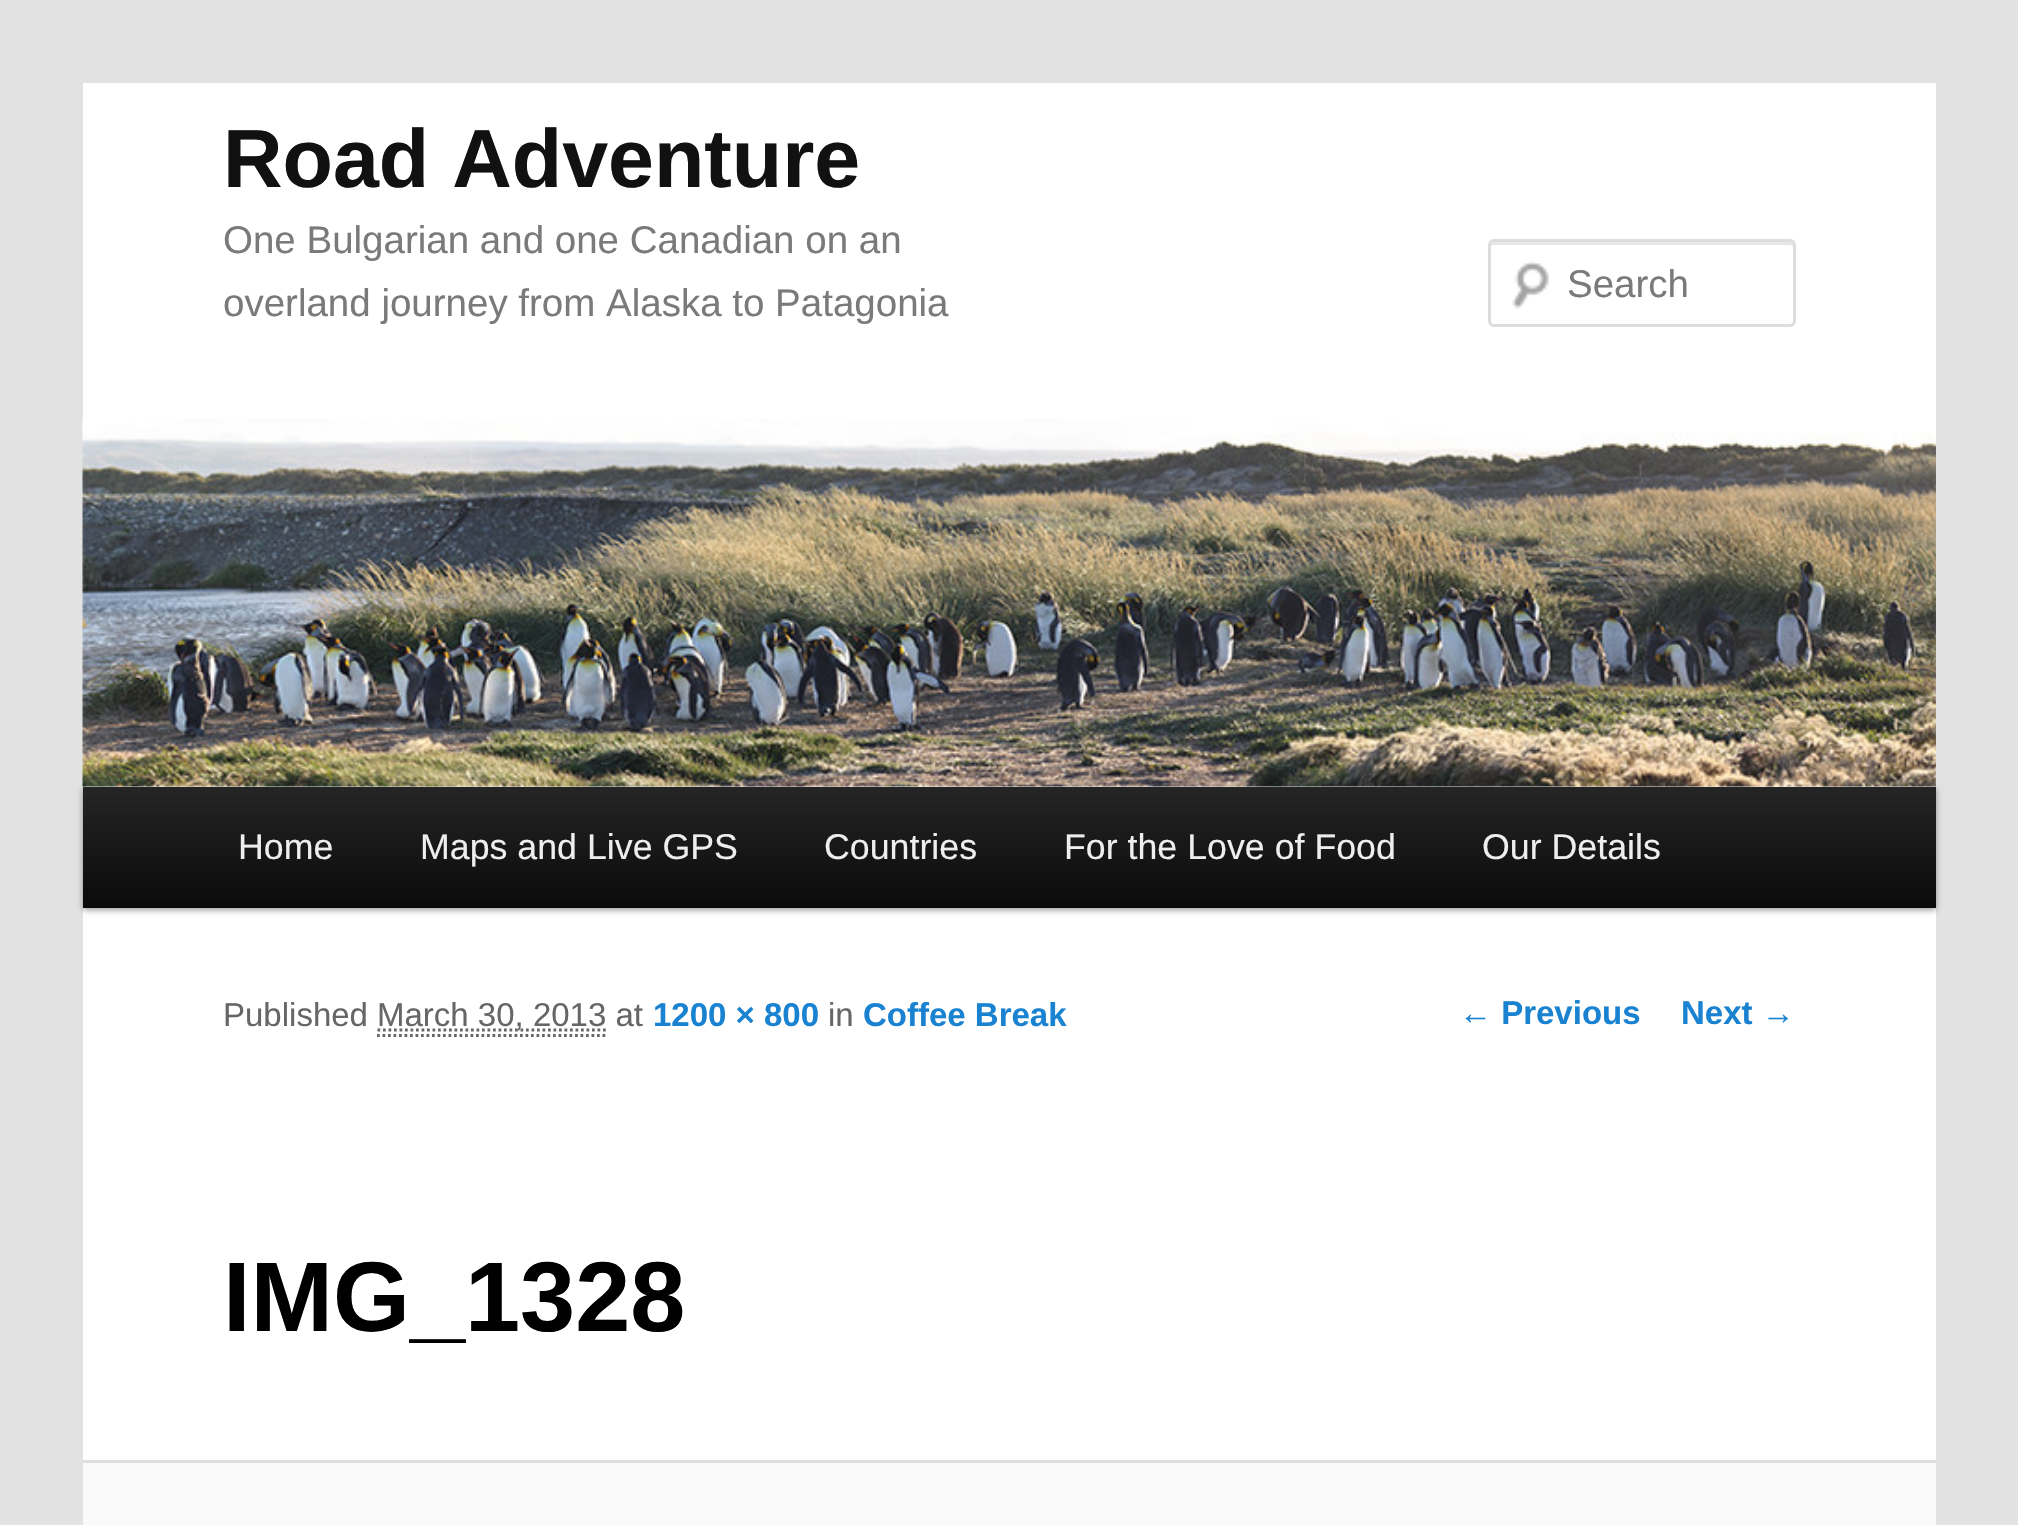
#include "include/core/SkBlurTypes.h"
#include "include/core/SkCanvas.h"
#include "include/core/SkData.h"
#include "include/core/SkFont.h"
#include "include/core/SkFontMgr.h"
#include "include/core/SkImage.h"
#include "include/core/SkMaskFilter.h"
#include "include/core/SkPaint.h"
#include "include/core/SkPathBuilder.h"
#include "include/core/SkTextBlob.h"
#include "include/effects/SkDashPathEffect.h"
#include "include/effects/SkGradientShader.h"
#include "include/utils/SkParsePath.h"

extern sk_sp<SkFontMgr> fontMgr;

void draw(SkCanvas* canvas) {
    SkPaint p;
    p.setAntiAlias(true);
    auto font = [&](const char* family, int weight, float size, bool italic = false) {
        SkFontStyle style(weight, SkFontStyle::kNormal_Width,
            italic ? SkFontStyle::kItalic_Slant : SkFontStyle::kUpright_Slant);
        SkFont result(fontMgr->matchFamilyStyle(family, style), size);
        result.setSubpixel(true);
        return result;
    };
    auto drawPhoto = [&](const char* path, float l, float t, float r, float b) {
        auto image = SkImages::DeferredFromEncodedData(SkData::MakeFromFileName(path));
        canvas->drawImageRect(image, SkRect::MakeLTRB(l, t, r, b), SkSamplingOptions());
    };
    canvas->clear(0xFFE2E2E2);
    p.setColor(0xFFFFFFFF);
    canvas->drawRect(SkRect::MakeLTRB(83, 83, 1936, 1460), p);
    auto font1 = font("Liberation Sans", 700, 82.5f);
    p.setColor(0xFF111111);
    canvas->drawString("Road Adventure", 223, 187, font1, p);
    auto font2 = font("Liberation Sans", 400, 38.5f);
    p.setColor(0xFF7A7A7A);
    canvas->drawString("One Bulgarian and one Canadian on an", 223, 253, font2, p);
    canvas->drawString("overland journey from Alaska to Patagonia", 223, 316, font2, p);
    drawPhoto("media/1.png", 1512, 261, 1549, 309);
    p.setColor(0xFFE6E6E6);
    canvas->drawPath(SkPathBuilder().moveTo(1493, 245).lineTo(1790, 245).cubicTo(1792, 245, 1793, 246, 1793, 248).lineTo(1793, 245).cubicTo(1793, 243, 1792, 242, 1790, 242).lineTo(1494, 242).cubicTo(1492, 242, 1491, 243, 1491, 245).lineTo(1491, 246).close().detach(), p);
    p.setStyle(SkPaint::kStroke_Style);
    p.setStrokeWidth(3);
    p.setColor(0xFFDDDDDD);
    canvas->drawRoundRect(SkRect::MakeLTRB(1489.5f, 240.5f, 1794.5f, 325.5f), 4.5f, 4.5f, p);
    p.setStyle(SkPaint::kFill_Style);
    p.setColor(0xFF7A7A7A);
    canvas->drawString("Search", 1567, 297, font2, p);
    p.setColor(0x66000000);
    p.setMaskFilter(SkMaskFilter::MakeBlur(kNormal_SkBlurStyle, 3));
    canvas->drawRect(SkRect::MakeLTRB(83, 789, 1936, 910), p);
    p.setMaskFilter(nullptr);
    drawPhoto("media/2.png", 82, 418, 1936, 787);
    {
        const SkColor colors[] = {0xFF252525, 0xFF0A0A0A};
        const float stops[] = {0, 1};
        const SkPoint ends[] = {{1009, 786}, {1009, 908}};
        p.setShader(SkGradientShader::MakeLinear(ends, colors, stops, 2, SkTileMode::kClamp));
        p.setAlpha(255);
    }
    canvas->drawRect(SkRect::MakeLTRB(83, 787, 1936, 908), p);
    auto font3 = font("Liberation Sans", 400, 35.75f);
    p.setShader(nullptr);
    p.setColor(0xFFEEEEEE);
    {
        const struct { const char* s; float x, y; } items[] = {
            {"Home", 238, 859},
            {"Maps and Live GPS", 420, 859},
            {"Countries", 824, 859},
            {"For the Love of Food", 1064, 859},
            {"Our Details", 1482, 859},
        };
        for (auto [s, x, y] : items) {
            canvas->drawString(s, x, y, font3, p);
        }
    }
    auto font4 = font("Liberation Sans", 400, 33);
    p.setColor(0xFF666666);
    canvas->drawString("Published", 223, 1026, font4, p);
    p.setStyle(SkPaint::kStroke_Style);
    p.setStrokeWidth(2.8f);
    p.setPathEffect(SkDashPathEffect::Make({{2.75f, 2.75f}}, 0));
    canvas->drawPath(SkPathBuilder().moveTo(377.5f, 1030).lineTo(607, 1030).detach(), p);
    p.setPathEffect(nullptr);
    p.setStyle(SkPaint::kFill_Style);
    canvas->drawString("March 30, 2013 at", 377, 1026, font4, p);
    p.setStyle(SkPaint::kStroke_Style);
    p.setPathEffect(SkDashPathEffect::Make({{2.75f, 2.75f}}, 0));
    canvas->drawPath(SkPathBuilder().moveTo(377, 1035.5f).lineTo(608, 1035.5f).detach(), p);
    p.setPathEffect(nullptr);
    auto font5 = font("Liberation Sans", 700, 33);
    p.setStyle(SkPaint::kFill_Style);
    p.setColor(0xFF1982D1);
    canvas->drawString("1200 × 800", 653, 1026, font5, p);
    p.setColor(0xFF666666);
    canvas->drawString("in", 828, 1026, font4, p);
    p.setColor(0xFF1982D1);
    canvas->drawString("Coffee Break", 863, 1026, font5, p);
    auto font6 = font("Liberation Sans", 700, 99);
    p.setColor(0xFF000000);
    canvas->drawString("IMG_1328", 223, 1331, font6, p);
    p.setColor(0xFFF9F9F9);
    canvas->drawRect(SkRect::MakeLTRB(83, 1463, 1936, 1525), p);
    p.setColor(0xFFDDDDDD);
    canvas->drawRect(SkRect::MakeLTRB(83, 1460, 1936, 1463), p);
    p.setColor(0xFF1982D1);
    canvas->drawString("← Previous", 1459, 1024, font5, p);
    canvas->drawString("Next →", 1681, 1024, font5, p);
}
